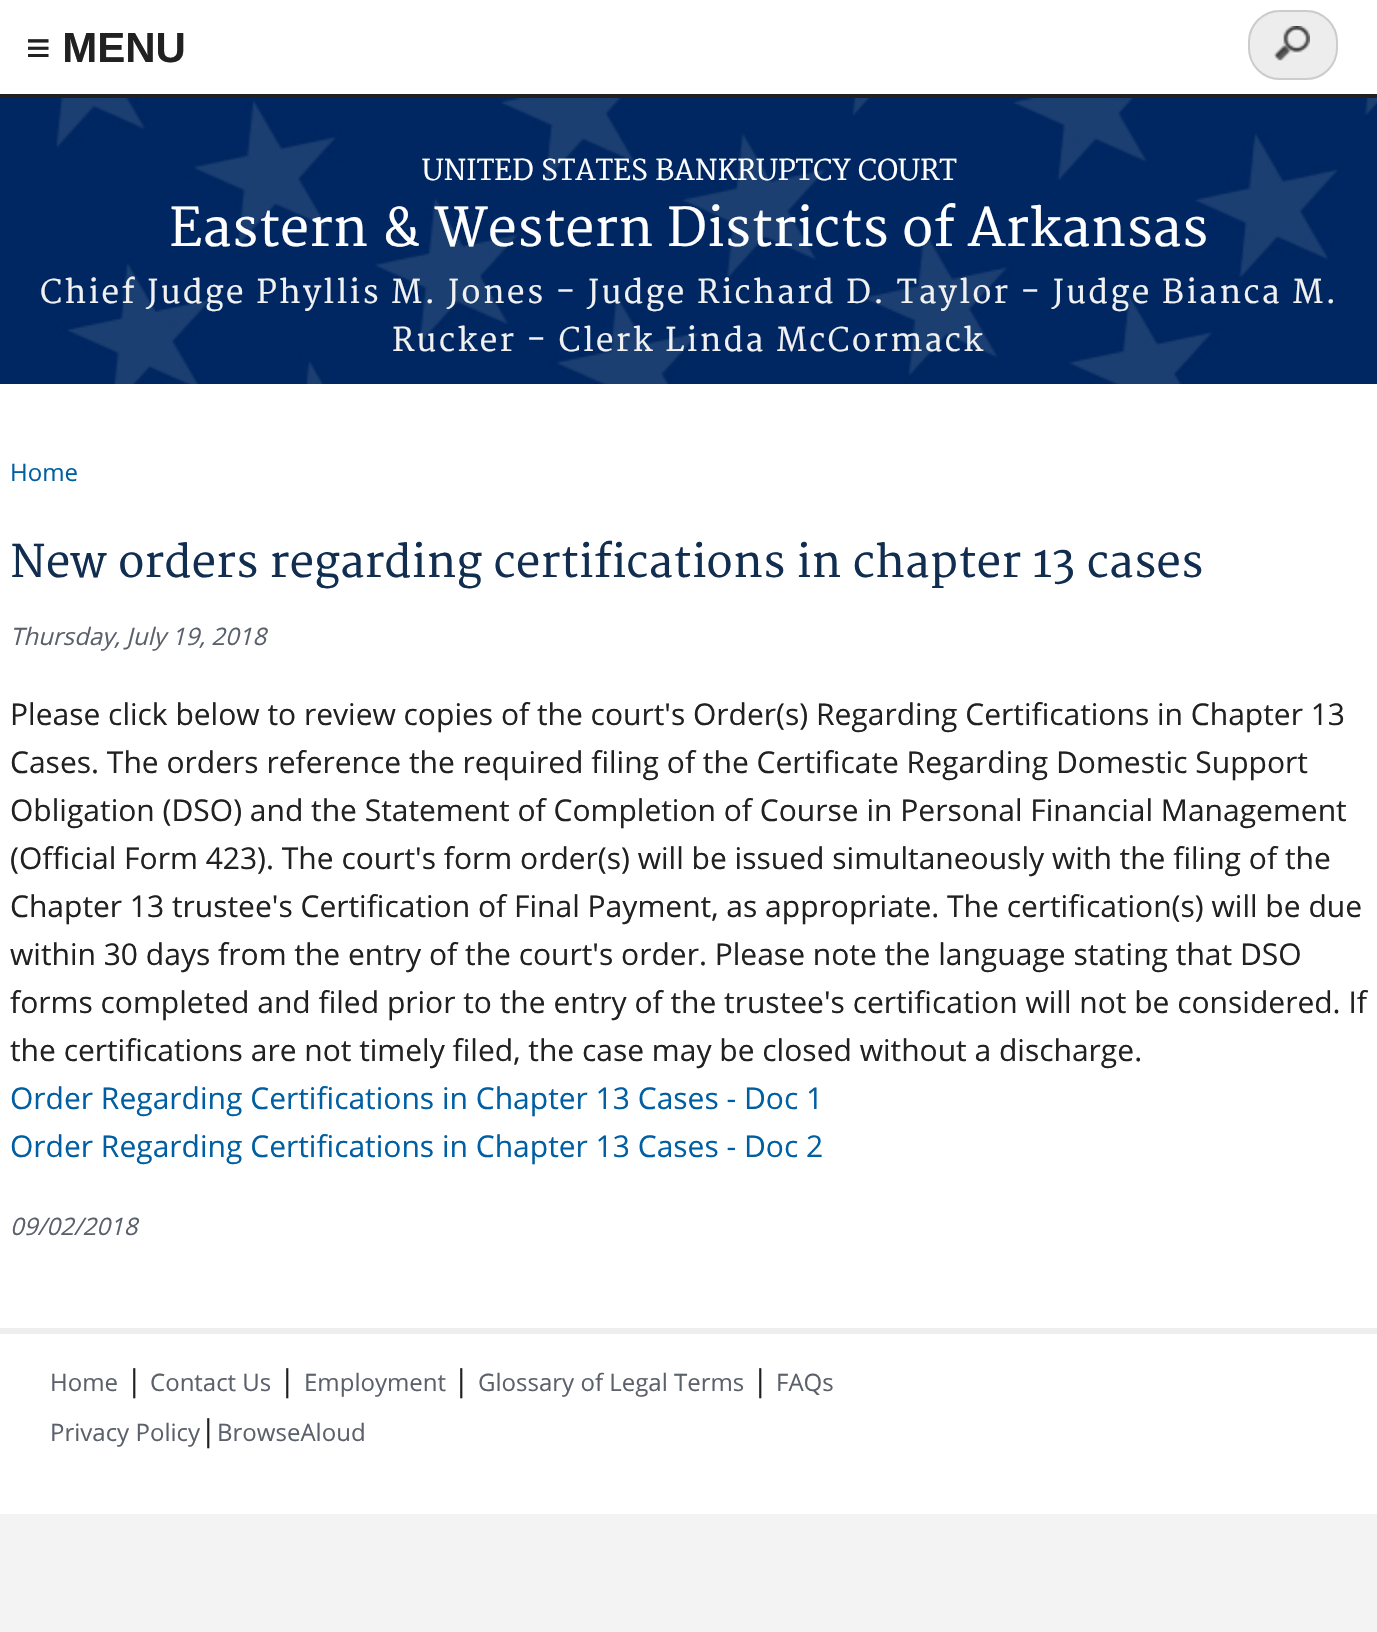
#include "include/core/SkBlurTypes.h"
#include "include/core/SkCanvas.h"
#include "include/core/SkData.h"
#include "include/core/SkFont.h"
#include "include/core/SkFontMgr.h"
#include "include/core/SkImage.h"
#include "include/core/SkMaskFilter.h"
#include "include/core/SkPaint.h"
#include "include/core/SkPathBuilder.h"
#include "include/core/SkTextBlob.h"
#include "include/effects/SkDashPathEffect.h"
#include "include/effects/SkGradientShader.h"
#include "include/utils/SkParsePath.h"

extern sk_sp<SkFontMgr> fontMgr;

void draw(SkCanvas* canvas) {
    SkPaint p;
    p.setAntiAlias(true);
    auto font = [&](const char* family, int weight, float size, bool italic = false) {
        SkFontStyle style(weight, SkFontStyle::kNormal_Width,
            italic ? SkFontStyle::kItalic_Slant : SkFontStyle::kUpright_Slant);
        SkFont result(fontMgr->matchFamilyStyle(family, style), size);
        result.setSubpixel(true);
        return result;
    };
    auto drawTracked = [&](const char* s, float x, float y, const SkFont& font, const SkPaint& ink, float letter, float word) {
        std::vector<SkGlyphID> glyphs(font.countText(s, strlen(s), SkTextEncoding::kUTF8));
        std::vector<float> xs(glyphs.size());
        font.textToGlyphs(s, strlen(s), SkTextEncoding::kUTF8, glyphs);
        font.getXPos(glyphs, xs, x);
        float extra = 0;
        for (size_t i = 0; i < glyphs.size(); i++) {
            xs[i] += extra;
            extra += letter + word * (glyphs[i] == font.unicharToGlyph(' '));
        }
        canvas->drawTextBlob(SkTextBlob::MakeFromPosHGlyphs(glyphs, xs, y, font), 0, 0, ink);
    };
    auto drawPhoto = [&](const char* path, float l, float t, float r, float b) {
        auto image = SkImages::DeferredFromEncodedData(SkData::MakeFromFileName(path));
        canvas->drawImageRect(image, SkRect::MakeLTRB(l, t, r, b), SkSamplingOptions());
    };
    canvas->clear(0xFFF3F3F3);
    p.setColor(0xFFFFFFFF);
    canvas->drawRect(SkRect::MakeLTRB(0, 0, 1377, 94), p);
    p.setColor(0xFF212121);
    canvas->drawRect(SkRect::MakeLTRB(0, 94, 1377, 98), p);
    auto font1 = font("Liberation Sans", 700, 42);
    canvas->drawString("≡ MENU", 26, 62, font1, p);
    p.setColor(0xFFFFFFFF);
    canvas->drawRect(SkRect::MakeLTRB(0, 384, 1377, 1514), p);
    p.setColor(0xFF002761);
    canvas->drawRect(SkRect::MakeLTRB(0, 98, 56, 384), p);
    drawPhoto("media/1.png", 56, 98, 1377, 384);
    p.setColor(0xFFEDEDED);
    canvas->drawRoundRect(SkRect::MakeLTRB(1248, 10, 1338, 80), 32, 32, p);
    drawPhoto("media/2.png", 1274, 26, 1310, 62);
    p.setStyle(SkPaint::kStroke_Style);
    p.setStrokeWidth(2);
    p.setColor(0xFFCCCCCC);
    canvas->drawRoundRect(SkRect::MakeLTRB(1249, 11, 1337, 79), 31, 31, p);
    auto font2 = font("Merriweather", 400, 28);
    p.setStyle(SkPaint::kFill_Style);
    p.setColor(0xFFFFFFFF);
    canvas->drawString("UNITED STATES BANKRUPTCY COURT", 422, 180, font2, p);
    auto font3 = font("Merriweather", 400, 52);
    canvas->drawString("Eastern & Western Districts of Arkansas", 169, 246, font3, p);
    auto font4 = font("Merriweather", 400, 32);
    p.setColor(0xFFF1F1F1);
    drawTracked("Chief Judge Phyllis M. Jones - Judge Richard D. Taylor - Judge Bianca M.", 40, 303, font4, p, 2.2f, 0);
    drawTracked("Rucker - Clerk Linda McCormack", 392, 351, font4, p, 2.2f, 0);
    auto font5 = font("Open Sans", 400, 24);
    p.setColor(0xFF005EA2);
    canvas->drawString("Home", 10, 481, font5, p);
    auto font6 = font("Merriweather", 400, 44);
    p.setColor(0xFF112E51);
    canvas->drawString("New orders regarding certifications in chapter 13 cases", 10, 577, font6, p);
    auto font7 = font("Open Sans", 400, 24, true);
    p.setColor(0xFF5B616B);
    canvas->drawString("Thursday, July 19, 2018", 10, 645, font7, p);
    auto font8 = font("Open Sans", 400, 30);
    p.setColor(0xFF212121);
    {
        const struct { const char* s; float x, y; } items[] = {
            {"Please click below to review copies of the court's Order(s) Regarding Certifications in Chapter 13", 10, 725},
            {"Cases. The orders reference the required filing of the Certificate Regarding Domestic Support", 10, 773},
            {"Obligation (DSO) and the Statement of Completion of Course in Personal Financial Management", 10, 821},
            {"(Official Form 423). The court's form order(s) will be issued simultaneously with the filing of the", 10, 869},
            {"Chapter 13 trustee's Certification of Final Payment, as appropriate. The certification(s) will be due", 10, 917},
            {"within 30 days from the entry of the court's order. Please note the language stating that DSO", 10, 965},
            {"forms completed and filed prior to the entry of the trustee's certification will not be considered. If", 10, 1013},
            {"the certifications are not timely filed, the case may be closed without a discharge.", 10, 1061},
        };
        for (auto [s, x, y] : items) {
            canvas->drawString(s, x, y, font8, p);
        }
    }
    p.setColor(0xFF005EA2);
    canvas->drawString("Order Regarding Certifications in Chapter 13 Cases - Doc 1", 10, 1109, font8, p);
    canvas->drawString("Order Regarding Certifications in Chapter 13 Cases - Doc 2", 10, 1157, font8, p);
    p.setColor(0xFF5B616B);
    canvas->drawString("09/02/2018", 10, 1235, font7, p);
    p.setColor(0xFFEEEEEE);
    canvas->drawRect(SkRect::MakeLTRB(0, 1328, 1377, 1334), p);
    p.setColor(0xFF5B616B);
    canvas->drawString("Home", 50, 1391, font5, p);
    p.setColor(0xFF212121);
    canvas->drawString("|", 126, 1391, font8, p);
    p.setColor(0xFF5B616B);
    canvas->drawString("Contact Us", 150, 1391, font5, p);
    p.setColor(0xFF212121);
    canvas->drawString("|", 279, 1391, font8, p);
    p.setColor(0xFF5B616B);
    canvas->drawString("Employment", 304, 1391, font5, p);
    p.setColor(0xFF212121);
    canvas->drawString("|", 453, 1391, font8, p);
    p.setColor(0xFF5B616B);
    canvas->drawString("Glossary of Legal Terms", 478, 1391, font5, p);
    p.setColor(0xFF212121);
    canvas->drawString("|", 752, 1391, font8, p);
    p.setColor(0xFF5B616B);
    canvas->drawString("FAQs", 776, 1391, font5, p);
    canvas->drawString("Privacy Policy", 50, 1441, font5, p);
    p.setColor(0xFF212121);
    canvas->drawString("|", 200, 1441, font8, p);
    p.setColor(0xFF5B616B);
    canvas->drawString("BrowseAloud", 217, 1441, font5, p);
}
